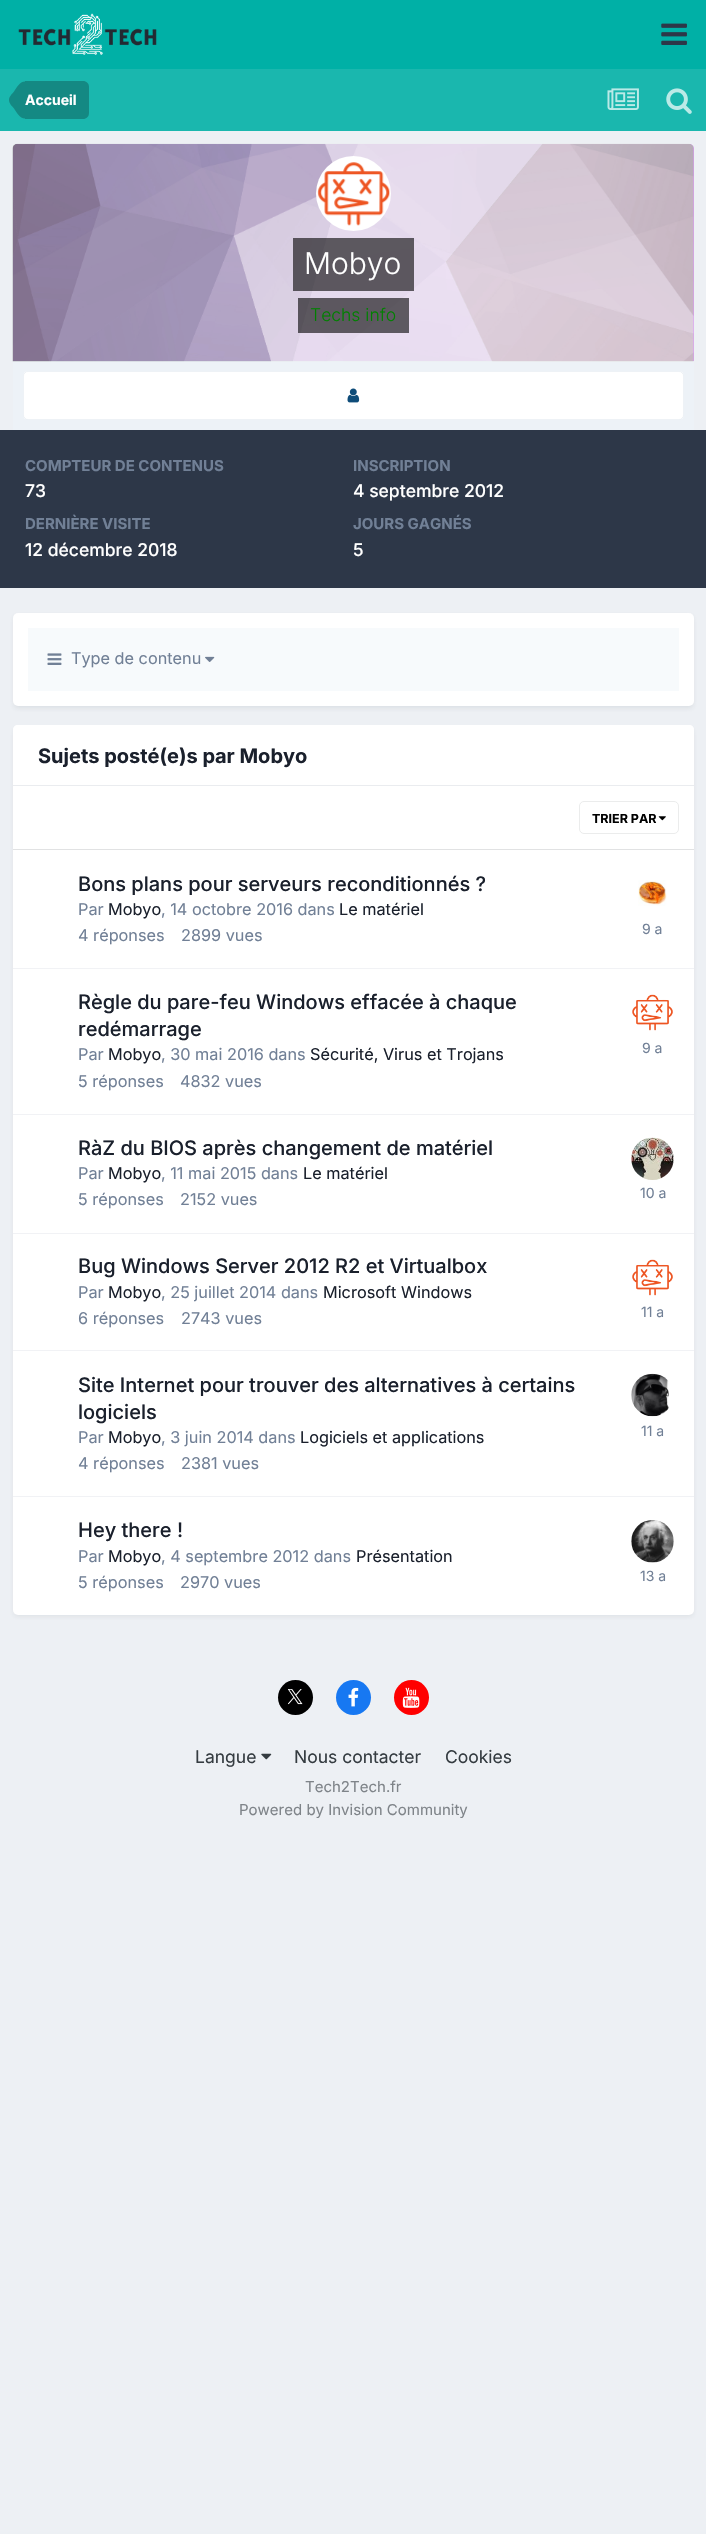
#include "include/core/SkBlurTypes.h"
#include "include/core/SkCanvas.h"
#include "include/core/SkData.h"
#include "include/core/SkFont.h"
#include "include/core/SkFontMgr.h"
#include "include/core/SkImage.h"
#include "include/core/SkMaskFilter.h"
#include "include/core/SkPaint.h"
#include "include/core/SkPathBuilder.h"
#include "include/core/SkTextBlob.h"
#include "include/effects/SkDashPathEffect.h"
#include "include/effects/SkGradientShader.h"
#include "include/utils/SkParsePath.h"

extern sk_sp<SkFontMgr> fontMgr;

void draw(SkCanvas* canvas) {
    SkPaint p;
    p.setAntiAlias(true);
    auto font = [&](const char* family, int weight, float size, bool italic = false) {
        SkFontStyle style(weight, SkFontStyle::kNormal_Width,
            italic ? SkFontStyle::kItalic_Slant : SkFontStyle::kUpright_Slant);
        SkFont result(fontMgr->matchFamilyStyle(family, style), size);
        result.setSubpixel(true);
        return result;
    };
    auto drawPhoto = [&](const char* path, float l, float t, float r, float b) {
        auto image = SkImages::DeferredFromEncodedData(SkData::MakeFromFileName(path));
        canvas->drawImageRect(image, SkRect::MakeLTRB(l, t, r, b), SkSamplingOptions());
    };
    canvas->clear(0xFFEDF0F4);
    p.setColor(0xFF00B0A6);
    canvas->drawRect(SkRect::MakeLTRB(0, 0, 706, 69), p);
    drawPhoto("media/1.png", 18, 13, 157, 55);
    drawPhoto("media/2.png", 661, 23, 687, 45);
    p.setColor(0xFF1AB7AE);
    canvas->drawRect(SkRect::MakeLTRB(0, 69, 706, 131), p);
    p.setColor(0xFF148983);
    canvas->drawPath(SkPathBuilder().moveTo(25, 81).lineTo(83, 81).cubicTo(86.5f, 81, 89, 83.5f, 89, 87).lineTo(89, 113).cubicTo(89, 116.5f, 86.5f, 119, 83, 119).lineTo(25, 119).close().detach(), p);
    canvas->drawPath(SkPathBuilder().moveTo(25, 100).lineTo(25, 118.5f).cubicTo(19.5f, 118.5f, 16.5f, 112, 14, 108.5f).cubicTo(12, 106, 9, 103.5f, 9, 100).close().moveTo(25, 100).lineTo(9, 100).cubicTo(9, 96.5f, 12, 94, 14, 91.5f).cubicTo(16.5f, 88, 19.5f, 81.5f, 25, 81.5f).close().detach(), p);
    auto font1 = font("Inter", 700, 14);
    p.setColor(0xFFFFFFFF);
    canvas->drawString("Accueil", 25, 105, font1, p);
    drawPhoto("media/3.png", 607, 88, 639, 110);
    drawPhoto("media/4.png", 666, 88, 692, 114);
    p.setColor(0xFFDA99FF);
    canvas->drawPath(SkPathBuilder().moveTo(18, 144).lineTo(689, 144).cubicTo(692, 144, 694, 146, 694, 149).lineTo(694, 361).lineTo(13, 361).lineTo(13, 149).cubicTo(13, 146, 15, 144, 18, 144).close().detach(), p);
    p.setColor(0xFFEDF2F7);
    canvas->drawRect(SkRect::MakeLTRB(13, 361, 694, 430), p);
    drawPhoto("media/5.png", 12, 143, 694, 362);
    p.setColor(0xFFFFFFFF);
    canvas->drawCircle(353.5f, 193.5f, 37.5f, p);
    drawPhoto("media/6.png", 317, 162, 390, 226);
    p.setColor(0x99000000);
    canvas->drawRect(SkRect::MakeLTRB(293, 238, 414, 291), p);
    auto font2 = font("Inter", 300, 30);
    p.setColor(0xFFFFFFFF);
    canvas->drawString("Mobyo", 304, 274, font2, p);
    p.setColor(0x99000000);
    canvas->drawRect(SkRect::MakeLTRB(298, 298, 409, 333), p);
    auto font3 = font("Inter", 300, 17.5f);
    p.setColor(0xFF008000);
    canvas->drawString("Techs info", 310, 321, font3, p);
    p.setColor(0xFFFFFFFF);
    canvas->drawRoundRect(SkRect::MakeLTRB(23, 371, 684, 420), 5, 5, p);
    p.setStyle(SkPaint::kStroke_Style);
    p.setStrokeWidth(1);
    p.setColor(0x120E4C79);
    canvas->drawRoundRect(SkRect::MakeLTRB(23.5f, 371.5f, 683.5f, 419.5f), 4.5f, 4.5f, p);
    drawPhoto("media/7.png", 347, 388, 360, 403);
    p.setStyle(SkPaint::kFill_Style);
    p.setColor(0xFF2D3748);
    canvas->drawRect(SkRect::MakeLTRB(0, 430, 706, 588), p);
    auto font4 = font("Inter", 700, 15);
    p.setColor(0xFF718096);
    canvas->drawString("COMPTEUR DE CONTENUS", 25, 471, font4, p);
    auto font5 = font("Inter", 500, 17.5f);
    p.setColor(0xFFFFFFFF);
    canvas->drawString("73", 25, 497, font5, p);
    p.setColor(0xFF718096);
    canvas->drawString("INSCRIPTION", 353, 471, font4, p);
    p.setColor(0xFFFFFFFF);
    canvas->drawString("4 septembre 2012", 353, 497, font5, p);
    p.setColor(0xFF718096);
    canvas->drawString("DERNIÈRE VISITE", 25, 529, font4, p);
    p.setColor(0xFFFFFFFF);
    canvas->drawString("12 décembre 2018", 25, 556, font5, p);
    p.setColor(0xFF718096);
    canvas->drawString("JOURS GAGNÉS", 353, 529, font4, p);
    p.setColor(0xFFFFFFFF);
    canvas->drawString("5", 353, 556, font5, p);
    p.setColor(0x1A2D3748);
    p.setMaskFilter(SkMaskFilter::MakeBlur(kNormal_SkBlurStyle, 2.5f));
    canvas->drawRoundRect(SkRect::MakeLTRB(14, 616, 693, 708), 4, 4, p);
    p.setMaskFilter(nullptr);
    p.setColor(0xFFFFFFFF);
    canvas->drawRoundRect(SkRect::MakeLTRB(13, 613, 694, 706), 5, 5, p);
    p.setColor(0xFFF7FAFC);
    canvas->drawRect(SkRect::MakeLTRB(28, 628, 679, 691), p);
    drawPhoto("media/8.png", 47, 653, 62, 665);
    auto font6 = font("Inter", 400, 16.25f);
    p.setColor(0xFF718096);
    canvas->drawString("Type de contenu", 71, 664, font6, p);
    drawPhoto("media/9.png", 205, 656, 215, 662);
    p.setColor(0x1A2D3748);
    p.setMaskFilter(SkMaskFilter::MakeBlur(kNormal_SkBlurStyle, 2.5f));
    canvas->drawRoundRect(SkRect::MakeLTRB(14, 729, 693, 1616), 4, 4, p);
    p.setMaskFilter(nullptr);
    p.setColor(0xFFFFFFFF);
    canvas->drawRoundRect(SkRect::MakeLTRB(13, 725, 694, 1615), 5, 5, p);
    canvas->drawPath(SkPathBuilder().moveTo(18, 725).lineTo(689, 725).cubicTo(692, 725, 694, 727, 694, 730).lineTo(694, 786).lineTo(13, 786).lineTo(13, 730).cubicTo(13, 727, 15, 725, 18, 725).close().detach(), p);
    p.setColor(0xFFEAECEF);
    canvas->drawRect(SkRect::MakeLTRB(13, 785, 694, 786), p);
    auto font7 = font("Inter", 700, 20);
    p.setColor(0xFF1A202C);
    canvas->drawString("Sujets posté(e)s par Mobyo", 38, 763, font7, p);
    p.setColor(0xFFE1E2E3);
    canvas->drawRect(SkRect::MakeLTRB(13, 849, 694, 850), p);
    drawPhoto("media/10.png", 658, 816, 666, 821);
    p.setStyle(SkPaint::kStroke_Style);
    p.setColor(0xFFEBECEC);
    canvas->drawRoundRect(SkRect::MakeLTRB(579.5f, 801.5f, 678.5f, 833.5f), 4.5f, 4.5f, p);
    auto font8 = font("Inter", 700, 12.5f);
    p.setStyle(SkPaint::kFill_Style);
    p.setColor(0xFF000000);
    canvas->drawString("TRIER PAR", 592, 823, font8, p);
    p.setColor(0xFFF1F2F5);
    canvas->drawRect(SkRect::MakeLTRB(13, 968, 694, 969), p);
    auto font9 = font("Inter", 500, 20);
    p.setColor(0xFF1A202C);
    canvas->drawString("Bons plans pour serveurs reconditionnés ?", 78, 891, font9, p);
    p.setColor(0xFF718096);
    canvas->drawString("Par", 78, 915, font6, p);
    p.setColor(0xFF1A202C);
    canvas->drawString("Mobyo", 108, 915, font6, p);
    p.setColor(0xFF718096);
    canvas->drawString(", 14 octobre 2016 dans", 161, 915, font6, p);
    p.setColor(0xFF1A202C);
    canvas->drawString("Le matériel", 339, 915, font6, p);
    p.setColor(0xFF718096);
    canvas->drawString("4 réponses", 78, 941, font6, p);
    canvas->drawString("2 899 vues", 181, 941, font6, p);
    drawPhoto("media/11.png", 638, 880, 667, 906);
    auto font10 = font("Inter", 400, 14);
    canvas->drawString("9 a", 642, 934, font10, p);
    p.setColor(0xFFF1F2F5);
    canvas->drawRect(SkRect::MakeLTRB(13, 1114, 694, 1115), p);
    p.setColor(0xFF1A202C);
    canvas->drawString("Règle du pare-feu Windows effacée à chaque", 78, 1009, font9, p);
    canvas->drawString("redémarrage", 78, 1036, font9, p);
    p.setColor(0xFF718096);
    canvas->drawString("Par", 78, 1060, font6, p);
    p.setColor(0xFF1A202C);
    canvas->drawString("Mobyo", 108, 1060, font6, p);
    p.setColor(0xFF718096);
    canvas->drawString(", 30 mai 2016 dans", 161, 1060, font6, p);
    p.setColor(0xFF1A202C);
    canvas->drawString("Sécurité, Virus et Trojans", 310, 1060, font6, p);
    drawPhoto("media/12.png", 632, 994, 673, 1031);
    p.setColor(0xFF718096);
    canvas->drawString("9 a", 642, 1053, font10, p);
    canvas->drawString("5 réponses", 78, 1087, font6, p);
    canvas->drawString("4 832 vues", 180, 1087, font6, p);
    p.setColor(0xFFF1F2F5);
    canvas->drawRect(SkRect::MakeLTRB(13, 1233, 694, 1234), p);
    p.setColor(0xFF1A202C);
    canvas->drawString("RàZ du BIOS après changement de matériel", 78, 1155, font9, p);
    p.setColor(0xFF718096);
    canvas->drawString("Par", 78, 1179, font6, p);
    p.setColor(0xFF1A202C);
    canvas->drawString("Mobyo", 108, 1179, font6, p);
    p.setColor(0xFF718096);
    canvas->drawString(", 11 mai 2015 dans", 161, 1179, font6, p);
    p.setColor(0xFF1A202C);
    canvas->drawString("Le matériel", 303, 1179, font6, p);
    p.setColor(0xFF718096);
    canvas->drawString("5 réponses", 78, 1205, font6, p);
    canvas->drawString("2 152 vues", 180, 1205, font6, p);
    drawPhoto("media/13.png", 631, 1137, 674, 1180);
    canvas->drawString("10 a", 640, 1198, font10, p);
    p.setColor(0xFFF1F2F5);
    canvas->drawRect(SkRect::MakeLTRB(13, 1350, 694, 1351), p);
    p.setColor(0xFF1A202C);
    canvas->drawString("Bug Windows Server 2012 R2 et Virtualbox", 78, 1273, font9, p);
    p.setColor(0xFF718096);
    canvas->drawString("Par", 78, 1298, font6, p);
    p.setColor(0xFF1A202C);
    canvas->drawString("Mobyo", 108, 1298, font6, p);
    p.setColor(0xFF718096);
    canvas->drawString(", 25 juillet 2014 dans", 161, 1298, font6, p);
    p.setColor(0xFF1A202C);
    canvas->drawString("Microsoft Windows", 323, 1298, font6, p);
    p.setColor(0xFF718096);
    canvas->drawString("6 réponses", 78, 1324, font6, p);
    canvas->drawString("2 743 vues", 181, 1324, font6, p);
    drawPhoto("media/12.png", 632, 1259, 673, 1296);
    canvas->drawString("11 a", 641, 1317, font10, p);
    p.setColor(0xFFF1F2F5);
    canvas->drawRect(SkRect::MakeLTRB(13, 1496, 694, 1497), p);
    p.setColor(0xFF1A202C);
    canvas->drawString("Site Internet pour trouver des alternatives à certains", 78, 1392, font9, p);
    canvas->drawString("logiciels", 78, 1419, font9, p);
    p.setColor(0xFF718096);
    canvas->drawString("Par", 78, 1443, font6, p);
    p.setColor(0xFF1A202C);
    canvas->drawString("Mobyo", 108, 1443, font6, p);
    p.setColor(0xFF718096);
    canvas->drawString(", 3 juin 2014 dans", 161, 1443, font6, p);
    p.setColor(0xFF1A202C);
    canvas->drawString("Logiciels et applications", 300, 1443, font6, p);
    drawPhoto("media/14.png", 631, 1373, 669, 1417);
    p.setColor(0xFF718096);
    canvas->drawString("11 a", 641, 1436, font10, p);
    canvas->drawString("4 réponses", 78, 1469, font6, p);
    canvas->drawString("2 381 vues", 181, 1469, font6, p);
    p.setColor(0xFF1A202C);
    canvas->drawString("Hey there !", 78, 1537, font9, p);
    p.setColor(0xFF718096);
    canvas->drawString("Par", 78, 1562, font6, p);
    p.setColor(0xFF1A202C);
    canvas->drawString("Mobyo", 108, 1562, font6, p);
    p.setColor(0xFF718096);
    canvas->drawString(", 4 septembre 2012 dans", 161, 1562, font6, p);
    p.setColor(0xFF1A202C);
    canvas->drawString("Présentation", 356, 1562, font6, p);
    p.setColor(0xFF718096);
    canvas->drawString("5 réponses", 78, 1588, font6, p);
    canvas->drawString("2 970 vues", 180, 1588, font6, p);
    drawPhoto("media/15.png", 631, 1520, 674, 1563);
    canvas->drawString("13 a", 640, 1581, font10, p);
    p.setColor(0xFF000000);
    canvas->drawCircle(295.5f, 1697.5f, 17.5f, p);
    drawPhoto("media/16.png", 288, 1689, 303, 1705);
    p.setColor(0xFF1778F2);
    canvas->drawCircle(353.5f, 1697.5f, 17.5f, p);
    drawPhoto("media/17.png", 348, 1687, 359, 1707);
    p.setColor(0xFFFF0000);
    canvas->drawCircle(411.5f, 1697.5f, 17.5f, p);
    drawPhoto("media/18.png", 402, 1687, 420, 1708);
    auto font11 = font("Inter", 400, 17.5f);
    p.setColor(0xFF353C41);
    canvas->drawString("Langue", 195, 1763, font11, p);
    drawPhoto("media/19.png", 261, 1753, 272, 1760);
    canvas->drawString("Nous contacter", 294, 1763, font11, p);
    canvas->drawString("Cookies", 445, 1763, font11, p);
    auto font12 = font("Inter", 400, 15);
    p.setColor(0xFF7F8489);
    canvas->drawString("Tech2Tech.fr", 305, 1792, font12, p);
    canvas->drawString("Powered by Invision Community", 239, 1815, font12, p);
}
